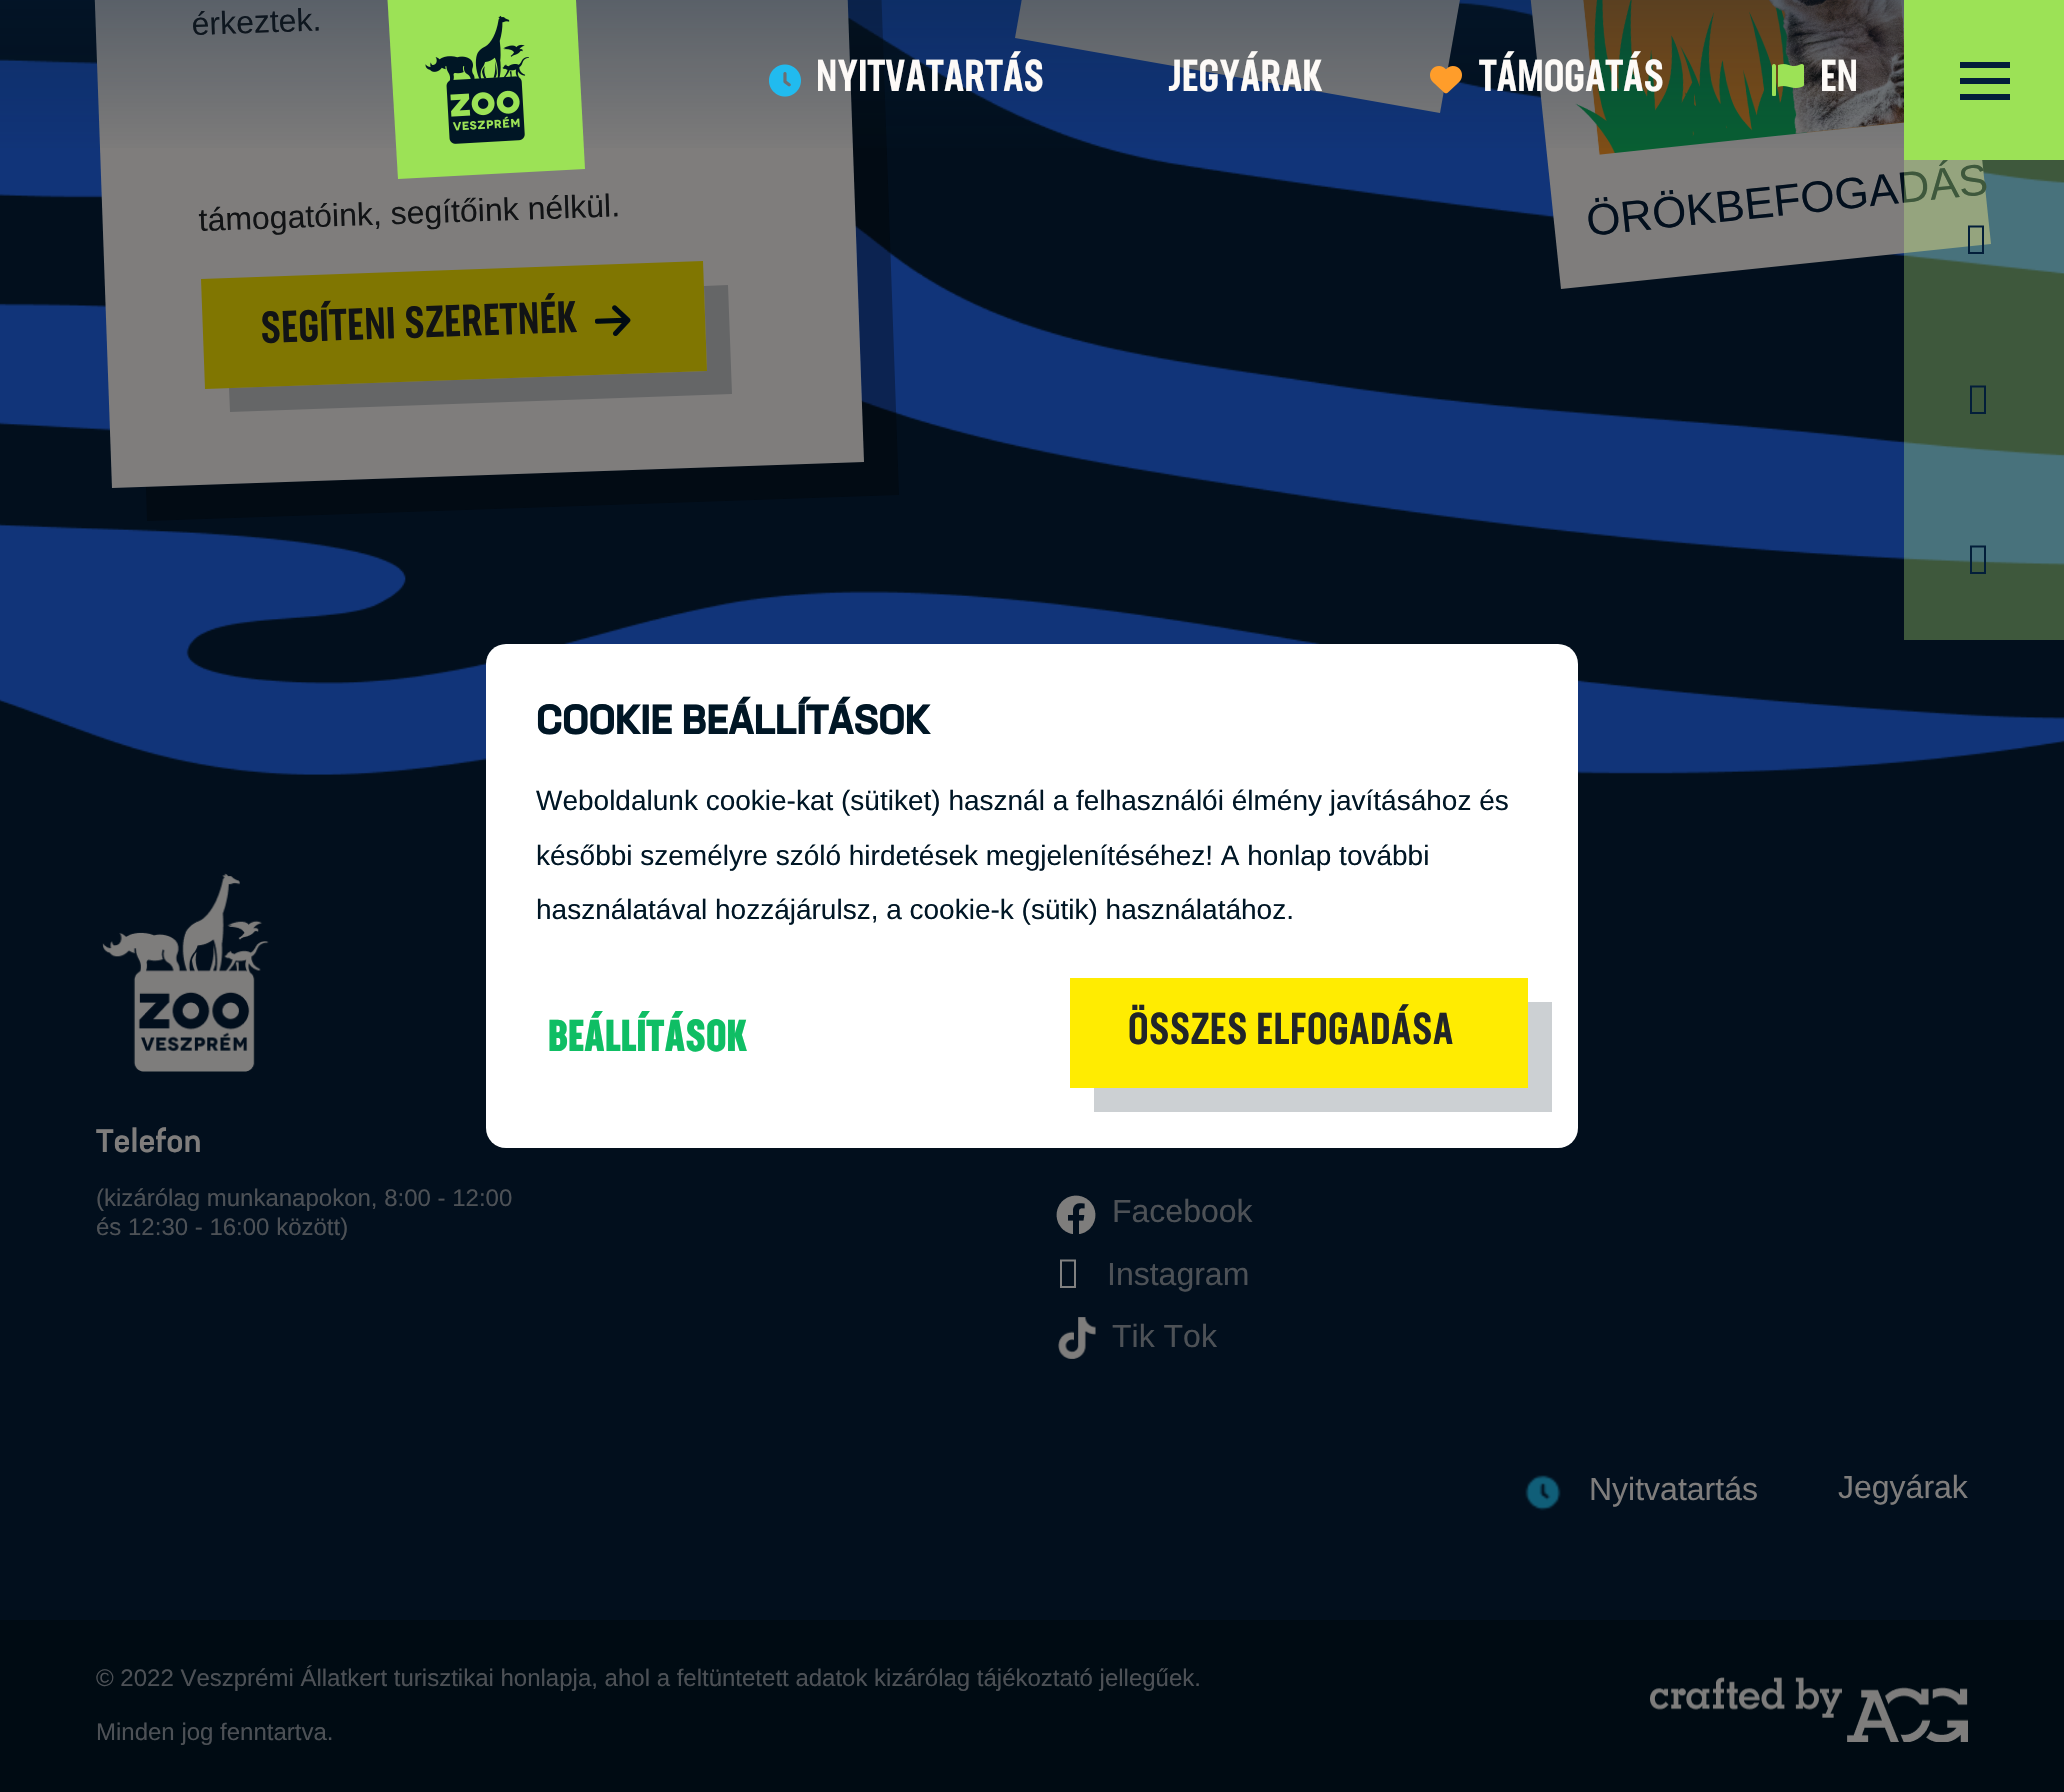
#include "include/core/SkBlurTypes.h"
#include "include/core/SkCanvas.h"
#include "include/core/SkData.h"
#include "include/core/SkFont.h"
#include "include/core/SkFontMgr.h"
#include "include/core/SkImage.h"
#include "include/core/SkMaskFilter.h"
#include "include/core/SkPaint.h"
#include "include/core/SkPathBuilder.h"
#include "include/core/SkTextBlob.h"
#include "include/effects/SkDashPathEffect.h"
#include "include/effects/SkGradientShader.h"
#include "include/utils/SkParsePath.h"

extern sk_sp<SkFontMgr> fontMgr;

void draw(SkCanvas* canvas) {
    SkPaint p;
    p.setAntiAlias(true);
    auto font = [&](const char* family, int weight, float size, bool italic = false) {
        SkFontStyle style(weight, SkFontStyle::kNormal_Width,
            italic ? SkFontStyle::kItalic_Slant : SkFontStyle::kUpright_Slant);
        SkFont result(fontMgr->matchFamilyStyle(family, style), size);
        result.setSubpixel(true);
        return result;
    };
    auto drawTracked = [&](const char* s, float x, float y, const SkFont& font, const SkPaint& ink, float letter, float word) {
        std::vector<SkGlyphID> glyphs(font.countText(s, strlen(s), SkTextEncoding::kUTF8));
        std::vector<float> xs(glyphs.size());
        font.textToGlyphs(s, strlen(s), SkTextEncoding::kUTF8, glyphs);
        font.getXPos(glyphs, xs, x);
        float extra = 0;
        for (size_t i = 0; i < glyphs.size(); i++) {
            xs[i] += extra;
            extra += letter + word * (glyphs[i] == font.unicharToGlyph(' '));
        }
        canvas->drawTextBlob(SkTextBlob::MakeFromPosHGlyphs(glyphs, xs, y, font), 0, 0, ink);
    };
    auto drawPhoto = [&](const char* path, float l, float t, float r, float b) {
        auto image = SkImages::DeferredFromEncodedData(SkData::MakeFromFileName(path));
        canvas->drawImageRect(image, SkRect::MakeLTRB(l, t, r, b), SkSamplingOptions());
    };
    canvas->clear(0xFF113479);
    drawPhoto("media/1.png", 0, 0, 2064, 776);
    p.setColor(0x54000000);
    canvas->drawPath(SkPathBuilder().moveTo(146, 487).lineTo(147, 521).lineTo(899, 495).lineTo(867, -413).lineTo(833, -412).lineTo(864, 462).close().detach(), p);
    p.setColor(0xFF7F7D7C);
    canvas->drawPath(SkPathBuilder().moveTo(80, -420).lineTo(832, -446).lineTo(864, 462).lineTo(112, 488).close().detach(), p);
    auto font1 = font("Liberation Sans", 400, 32);
    p.setColor(0xFF111315);
    canvas->save();
    canvas->rotate(-2, 192, 35);
    canvas->drawString("érkeztek.", 192, 35, font1, p);
    canvas->restore();
    canvas->save();
    canvas->rotate(-2, 199, 231);
    canvas->drawString("támogatóink, segítőink nélkül.", 199, 231, font1, p);
    canvas->restore();
    p.setColor(0xFF656667);
    canvas->drawPath(SkPathBuilder().moveTo(229, 388).lineTo(230, 412).lineTo(732, 394).lineTo(728, 285).lineTo(704, 286).lineTo(707, 371).close().detach(), p);
    p.setColor(0xFF807601);
    canvas->drawPath(SkPathBuilder().moveTo(201, 279).lineTo(703, 261).lineTo(707, 371).lineTo(205, 389).close().detach(), p);
    auto font2 = font("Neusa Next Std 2", 500, 44);
    p.setColor(0xFF111315);
    canvas->save();
    canvas->rotate(-2, 261, 343);
    drawTracked("SEGÍTENI SZERETNÉK", 261, 343, font2, p, 0.4f, 0);
    canvas->restore();
    drawPhoto("media/2.png", 595, 305, 631, 336);
    p.setColor(0xFF7F7D7C);
    canvas->drawPath(SkPathBuilder().moveTo(1104, -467).lineTo(1529, -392).lineTo(1440, 113).lineTo(1015, 38).close().detach(), p);
    canvas->drawPath(SkPathBuilder().moveTo(1513, -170).lineTo(1943, -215).lineTo(1991, 244).lineTo(1561, 289).close().detach(), p);
    drawPhoto("media/3.png", 1575, 0, 1904, 155);
    auto font3 = font("Liberation Sans", 400, 44);
    p.setColor(0xFF020F1D);
    canvas->save();
    canvas->rotate(-6, 1588, 236);
    canvas->drawString("ÖRÖKBEFOGADÁS", 1588, 236, font3, p);
    canvas->restore();
    {
        const SkColor colors[] = {0x4D031E3A, 0x00031E3A};
        const float stops[] = {0, 1};
        const SkPoint ends[] = {{1032, 0}, {1032, 160}};
        p.setShader(SkGradientShader::MakeLinear(ends, colors, stops, 2, SkTileMode::kClamp));
        p.setAlpha(255);
    }
    canvas->drawRect(SkRect::MakeLTRB(0, 0, 1904, 148), p);
    p.setShader(nullptr);
    p.setColor(0xFF9CE256);
    canvas->drawPath(SkPathBuilder().moveTo(387, -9).lineTo(575, -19).lineTo(585, 169).lineTo(398, 179).close().detach(), p);
    drawPhoto("media/4.png", 425, 15, 529, 144);
    drawPhoto("media/5.png", 769, 64, 801, 97);
    p.setColor(0xFFFDFAF7);
    canvas->drawString("NYITVATARTÁS", 816, 91, font2, p);
    canvas->drawString("JEGYÁRAK", 1168, 91, font2, p);
    drawPhoto("media/6.png", 1430, 66, 1462, 94);
    canvas->drawString("TÁMOGATÁS", 1479, 91, font2, p);
    drawPhoto("media/7.png", 1772, 64, 1804, 96);
    canvas->drawString("EN", 1820, 91, font2, p);
    {
        const struct { float l, t, r, b; SkColor color; } items[] = {
            {1904, 0, 2064, 160, 0xFF9CE256},
            {1960, 62, 2010, 68, 0xFF031E3A},
            {1960, 78, 2010, 84, 0xFF031E3A},
            {1960, 94, 2010, 100, 0xFF031E3A},
            {1904, 160, 2064, 320, 0x4DC7FF81},
        };
        for (auto [l, t, r, b, color] : items) {
            p.setColor(color);
            canvas->drawRect(SkRect::MakeLTRB(l, t, r, b), p);
        }
    }
    p.setColor(0xFF031E3A);
    canvas->drawPath(SkPathBuilder().moveTo(1968, 254).lineTo(1968, 225.5f).lineTo(1984, 225.5f).lineTo(1984, 254).close().moveTo(1970, 252).lineTo(1982, 252).lineTo(1982, 227.5f).lineTo(1970, 227.5f).close().detach(), p);
    p.setColor(0x4DC7FF81);
    canvas->drawRect(SkRect::MakeLTRB(1904, 320, 2064, 480), p);
    p.setColor(0xFF031E3A);
    canvas->drawPath(SkPathBuilder().moveTo(1970, 414).lineTo(1970, 385.5f).lineTo(1986, 385.5f).lineTo(1986, 414).close().moveTo(1972, 412).lineTo(1984, 412).lineTo(1984, 387.5f).lineTo(1972, 387.5f).close().detach(), p);
    p.setColor(0x4DC7FF81);
    canvas->drawRect(SkRect::MakeLTRB(1904, 480, 2064, 640), p);
    p.setColor(0xFF031E3A);
    canvas->drawPath(SkPathBuilder().moveTo(1970, 574).lineTo(1970, 545.5f).lineTo(1986, 545.5f).lineTo(1986, 574).close().moveTo(1972, 572).lineTo(1984, 572).lineTo(1984, 547.5f).lineTo(1972, 547.5f).close().detach(), p);
    p.setColor(0xFF020F1D);
    canvas->drawRect(SkRect::MakeLTRB(0, 776, 2064, 1620), p);
    p.setColor(0xFFFFFFFF);
    canvas->drawRoundRect(SkRect::MakeLTRB(486, 644, 1578, 1148), 20, 20, p);
    auto font4 = font("Neusa Next Std 2", 700, 40);
    p.setColor(0xFF001625);
    canvas->drawString("COOKIE BEÁLLÍTÁSOK", 536, 734, font4, p);
    auto font5 = font("Liberation Sans", 400, 28);
    {
        const struct { const char* s; float x, y; } items[] = {
            {"Weboldalunk cookie-kat (sütiket) használ a felhasználói élmény javításához és", 536, 810},
            {"későbbi személyre szóló hirdetések megjelenítéséhez! A honlap további", 536, 865},
            {"használatával hozzájárulsz, a cookie-k (sütik) használatához.", 536, 919},
        };
        for (auto [s, x, y] : items) {
            canvas->drawString(s, x, y, font5, p);
        }
    }
    auto font6 = font("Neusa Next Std", 700, 44);
    p.setColor(0xFF0FBE64);
    canvas->drawString("BEÁLLÍTÁSOK", 548, 1051, font6, p);
    p.setColor(0xFFCCD0D3);
    canvas->drawPath(SkPathBuilder().moveTo(1094, 1088).lineTo(1094, 1112).lineTo(1552, 1112).lineTo(1552, 1002).lineTo(1528, 1002).lineTo(1528, 1088).close().detach(), p);
    p.setColor(0xFFFFEC01);
    canvas->drawRect(SkRect::MakeLTRB(1070, 978, 1528, 1088), p);
    p.setColor(0xFF212529);
    drawTracked("ÖSSZES ELFOGADÁSA", 1128, 1044, font2, p, 0.4f, 0);
    drawPhoto("media/8.png", 102, 873, 269, 1072);
    auto font7 = font("Neusa Next Std", 500, 32);
    p.setColor(0xFF7F7D7C);
    canvas->drawString("Telefon", 96, 1152, font7, p);
    auto font8 = font("Liberation Sans", 400, 24);
    p.setColor(0xFF4D5156);
    canvas->drawString("(kizárólag munkanapokon, 8:00 - 12:00", 96, 1206, font8, p);
    canvas->drawString("és 12:30 - 16:00 között)", 96, 1235, font8, p);
    drawPhoto("media/9.png", 1056, 1195, 1096, 1234);
    canvas->drawString("Facebook", 1112, 1222, font1, p);
    p.setColor(0xFF808080);
    canvas->drawPath(SkPathBuilder().moveTo(1060, 1288).lineTo(1060, 1259.5f).lineTo(1076, 1259.5f).lineTo(1076, 1288).close().moveTo(1062, 1286).lineTo(1074, 1286).lineTo(1074, 1261.5f).lineTo(1062, 1261.5f).close().detach(), p);
    p.setColor(0xFF4D5156);
    canvas->drawString("Instagram", 1107, 1285, font1, p);
    drawPhoto("media/10.png", 1058, 1317, 1096, 1359);
    canvas->drawString("Tik Tok", 1112, 1347, font1, p);
    drawPhoto("media/11.png", 1525, 1475, 1561, 1511);
    p.setColor(0xFF7F7D7C);
    canvas->drawString("Nyitvatartás", 1589, 1500, font1, p);
    canvas->drawString("Jegyárak", 1838, 1498, font1, p);
    p.setColor(0xFF000B13);
    canvas->drawRect(SkRect::MakeLTRB(0, 1620, 2064, 1792), p);
    p.setColor(0xFF4D5156);
    canvas->drawString("© 2022 Veszprémi Állatkert turisztikai honlapja, ahol a feltüntetett adatok kizárólag tájékoztató jellegűek.", 96, 1686, font8, p);
    canvas->drawString("Minden jog fenntartva.", 96, 1740, font8, p);
    drawPhoto("media/12.png", 1650, 1677, 1968, 1742);
}
